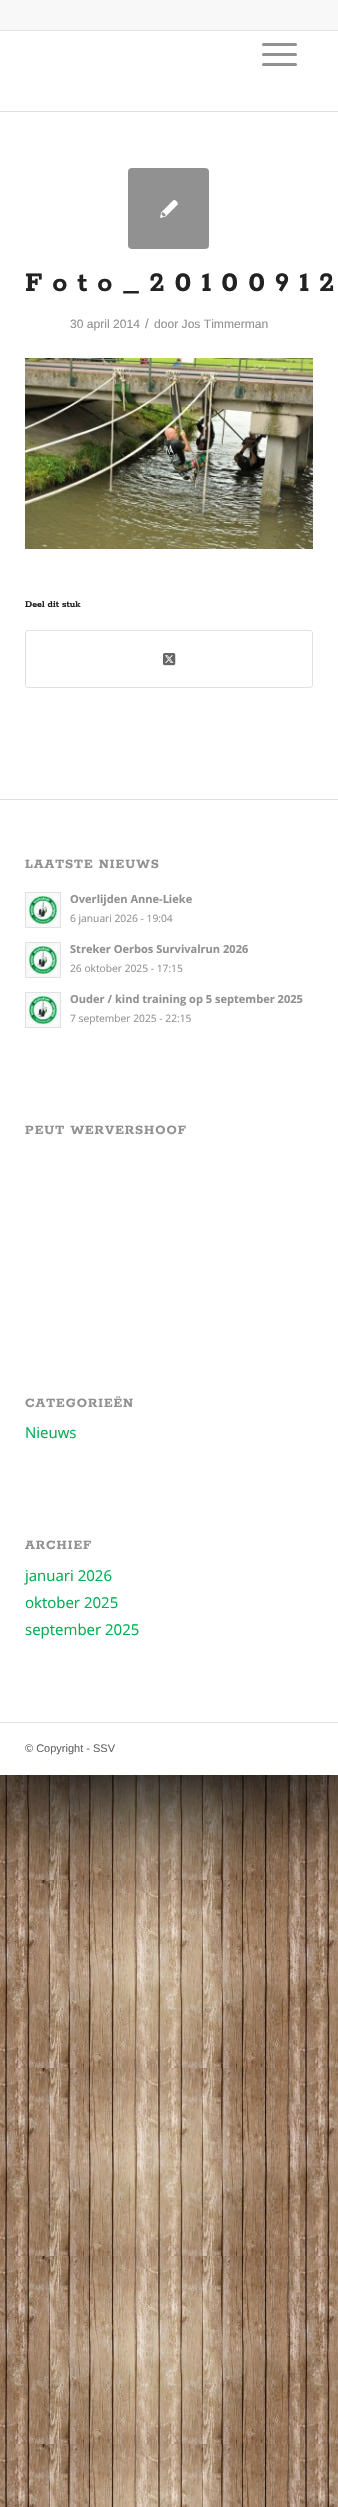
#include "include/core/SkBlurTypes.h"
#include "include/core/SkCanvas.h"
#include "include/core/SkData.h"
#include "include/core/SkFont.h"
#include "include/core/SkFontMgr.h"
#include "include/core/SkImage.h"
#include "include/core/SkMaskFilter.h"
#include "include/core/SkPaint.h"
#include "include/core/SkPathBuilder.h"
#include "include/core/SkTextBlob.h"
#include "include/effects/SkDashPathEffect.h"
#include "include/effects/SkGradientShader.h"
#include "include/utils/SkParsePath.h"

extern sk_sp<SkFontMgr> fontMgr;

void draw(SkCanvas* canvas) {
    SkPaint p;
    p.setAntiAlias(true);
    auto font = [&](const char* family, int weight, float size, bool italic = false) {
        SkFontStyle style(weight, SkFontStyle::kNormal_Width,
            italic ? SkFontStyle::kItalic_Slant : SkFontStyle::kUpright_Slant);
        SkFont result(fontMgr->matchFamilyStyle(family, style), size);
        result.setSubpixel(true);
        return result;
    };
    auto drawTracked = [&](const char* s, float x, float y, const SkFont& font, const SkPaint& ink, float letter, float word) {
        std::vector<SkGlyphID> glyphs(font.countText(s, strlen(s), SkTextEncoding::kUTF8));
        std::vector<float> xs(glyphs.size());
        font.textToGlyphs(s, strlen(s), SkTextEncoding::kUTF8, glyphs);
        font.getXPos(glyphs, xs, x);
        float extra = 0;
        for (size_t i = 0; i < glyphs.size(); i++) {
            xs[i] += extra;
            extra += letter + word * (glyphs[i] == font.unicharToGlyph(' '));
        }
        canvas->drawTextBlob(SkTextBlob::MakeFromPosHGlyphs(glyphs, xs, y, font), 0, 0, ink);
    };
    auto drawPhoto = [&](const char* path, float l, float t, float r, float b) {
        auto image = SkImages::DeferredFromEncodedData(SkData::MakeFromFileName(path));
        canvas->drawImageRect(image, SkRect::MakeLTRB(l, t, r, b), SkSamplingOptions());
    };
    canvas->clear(0xFFFFFFFF);
    drawPhoto("media/1.png", 0, 1775, 338, 2507);
    p.setColor(0xFF000000);
    p.setMaskFilter(SkMaskFilter::MakeBlur(kNormal_SkBlurStyle, 50));
    canvas->drawRect(SkRect::MakeLTRB(-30, -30, 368, 1805), p);
    p.setMaskFilter(nullptr);
    {
        const struct { float l, t, r, b; SkColor color; } items[] = {
            {0, 0, 338, 30, 0xFFF8F8F8},
            {0, 30, 338, 31, 0xFFE1E1E1},
            {0, 31, 338, 111, 0xFFFFFFFF},
            {0, 111, 338, 112, 0xFFE1E1E1},
        };
        for (auto [l, t, r, b, color] : items) {
            p.setColor(color);
            canvas->drawRect(SkRect::MakeLTRB(l, t, r, b), p);
        }
    }
    p.setColor(0xFF919191);
    canvas->drawRoundRect(SkRect::MakeLTRB(262, 53, 297, 56), 1.5f, 1.5f, p);
    canvas->drawRoundRect(SkRect::MakeLTRB(262, 43, 297, 46), 1.5f, 1.5f, p);
    canvas->drawRoundRect(SkRect::MakeLTRB(262, 63, 297, 66), 1.5f, 1.5f, p);
    p.setColor(0xFFFFFFFF);
    canvas->drawRect(SkRect::MakeLTRB(0, 112, 338, 1775), p);
    p.setColor(0xFF919191);
    canvas->drawRoundRect(SkRect::MakeLTRB(128, 168, 209, 249), 4, 4, p);
    drawPhoto("media/2.png", 160, 200, 178, 218);
    auto font1 = font("Rokkitt", 600, 30);
    p.setColor(0xFF222222);
    drawTracked("Foto_20100912", 25, 291, font1, p, 10, 0);
    auto font2 = font("Liberation Sans", 400, 12.1f);
    p.setColor(0xFF919191);
    canvas->drawString("30 april 2014", 70, 328, font2, p);
    auto font3 = font("Liberation Sans", 400, 13);
    canvas->drawString("/", 145, 328, font3, p);
    canvas->drawString("door Jos Timmerman", 154, 328, font2, p);
    drawPhoto("media/3.png", 25, 358, 313, 549);
    auto font4 = font("Rokkitt", 600, 10);
    p.setColor(0xFF222222);
    canvas->drawString("Deel dit stuk", 25, 607, font4, p);
    p.setStyle(SkPaint::kStroke_Style);
    p.setStrokeWidth(1);
    p.setColor(0xFFE1E1E1);
    canvas->drawRoundRect(SkRect::MakeLTRB(25.5f, 630.5f, 312.5f, 687.5f), 2.5f, 2.5f, p);
    drawPhoto("media/4.png", 163, 653, 176, 666);
    p.setStyle(SkPaint::kFill_Style);
    canvas->drawRect(SkRect::MakeLTRB(0, 799, 338, 800), p);
    auto font5 = font("Rokkitt", 600, 14.25f);
    p.setColor(0xFF919191);
    drawTracked("LAATSTE NIEUWS", 25, 868, font5, p, 1, 0);
    p.setColor(0xFFF8F8F8);
    canvas->drawRect(SkRect::MakeLTRB(25.5f, 892.5f, 60.5f, 927.5f), p);
    p.setStyle(SkPaint::kStroke_Style);
    p.setColor(0xFFE1E1E1);
    canvas->drawRect(SkRect::MakeLTRB(25.5f, 892.5f, 60.5f, 927.5f), p);
    drawPhoto("media/5.png", 29, 896, 57, 924);
    auto font6 = font("Open Sans", 700, 11.05f);
    p.setStyle(SkPaint::kFill_Style);
    p.setColor(0xFF919191);
    canvas->drawString("Overlijden Anne-Lieke", 70, 903, font6, p);
    auto font7 = font("Open Sans", 400, 10.25f);
    canvas->drawString("6 januari 2026 - 19:04", 70, 922, font7, p);
    p.setColor(0xFFF8F8F8);
    canvas->drawRect(SkRect::MakeLTRB(25.5f, 942.5f, 60.5f, 977.5f), p);
    p.setStyle(SkPaint::kStroke_Style);
    p.setColor(0xFFE1E1E1);
    canvas->drawRect(SkRect::MakeLTRB(25.5f, 942.5f, 60.5f, 977.5f), p);
    drawPhoto("media/6.png", 29, 946, 57, 974);
    p.setStyle(SkPaint::kFill_Style);
    p.setColor(0xFF919191);
    canvas->drawString("Streker Oerbos Survivalrun 2026", 70, 953, font6, p);
    canvas->drawString("26 oktober 2025 - 17:15", 70, 972, font7, p);
    p.setColor(0xFFF8F8F8);
    canvas->drawRect(SkRect::MakeLTRB(25.5f, 992.5f, 60.5f, 1027.5f), p);
    p.setStyle(SkPaint::kStroke_Style);
    p.setColor(0xFFE1E1E1);
    canvas->drawRect(SkRect::MakeLTRB(25.5f, 992.5f, 60.5f, 1027.5f), p);
    drawPhoto("media/5.png", 29, 996, 57, 1024);
    p.setStyle(SkPaint::kFill_Style);
    p.setColor(0xFF919191);
    canvas->drawString("Ouder / kind training op 5 september 2025", 70, 1003, font6, p);
    canvas->drawString("7 september 2025 - 22:15", 70, 1022, font7, p);
    drawTracked("PEUT WERVERSHOOF", 25, 1134, font5, p, 1, 0);
    drawTracked("CATEGORIEËN", 25, 1407, font5, p, 1, 0);
    auto font8 = font("Open Sans", 400, 15);
    p.setColor(0xFF01AD51);
    canvas->drawString("Nieuws", 25, 1438, font8, p);
    p.setColor(0xFF919191);
    drawTracked("ARCHIEF", 25, 1549, font5, p, 1, 0);
    p.setColor(0xFF01AD51);
    {
        const struct { const char* s; float x, y; } items[] = {
            {"januari 2026", 25, 1581},
            {"oktober 2025", 25, 1608},
            {"september 2025", 25, 1635},
        };
        for (auto [s, x, y] : items) {
            canvas->drawString(s, x, y, font8, p);
        }
    }
    p.setColor(0xFFE1E1E1);
    canvas->drawRect(SkRect::MakeLTRB(0, 1722, 338, 1723), p);
    auto font9 = font("Liberation Sans", 400, 11);
    p.setColor(0xFF666666);
    canvas->drawString("© Copyright - SSV", 25, 1752, font9, p);
}
